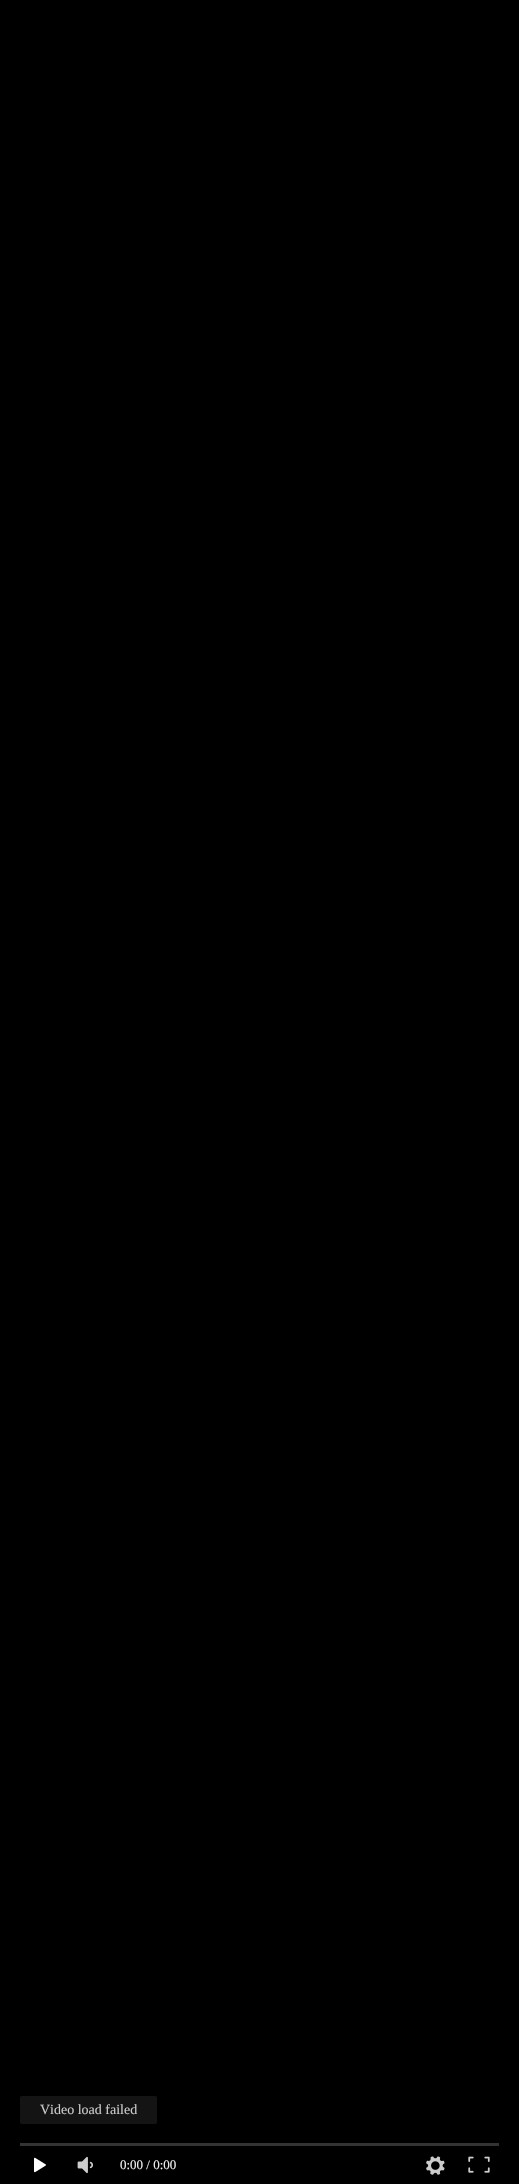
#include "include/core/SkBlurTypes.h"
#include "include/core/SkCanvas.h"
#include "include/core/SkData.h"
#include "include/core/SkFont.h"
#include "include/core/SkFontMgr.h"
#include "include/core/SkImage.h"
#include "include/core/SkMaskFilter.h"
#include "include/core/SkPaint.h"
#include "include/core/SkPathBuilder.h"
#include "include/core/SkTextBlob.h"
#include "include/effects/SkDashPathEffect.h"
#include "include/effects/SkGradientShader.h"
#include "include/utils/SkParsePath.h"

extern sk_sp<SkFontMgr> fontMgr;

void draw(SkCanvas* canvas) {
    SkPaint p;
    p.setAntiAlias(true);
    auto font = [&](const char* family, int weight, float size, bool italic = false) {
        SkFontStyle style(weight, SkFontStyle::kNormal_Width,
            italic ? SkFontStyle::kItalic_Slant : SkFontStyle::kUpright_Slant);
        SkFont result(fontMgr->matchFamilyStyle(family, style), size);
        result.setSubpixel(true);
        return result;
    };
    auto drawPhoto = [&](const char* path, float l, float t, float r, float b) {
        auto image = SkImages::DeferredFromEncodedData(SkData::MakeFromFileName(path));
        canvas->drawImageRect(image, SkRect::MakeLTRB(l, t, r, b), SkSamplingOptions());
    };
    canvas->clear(0xFF000000);
    p.setColor(0xFF141414);
    canvas->drawRoundRect(SkRect::MakeLTRB(20, 2096, 157, 2124), 2, 2, p);
    auto font1 = font("Liberation Serif", 400, 14);
    p.setColor(0xFFCCCCCC);
    canvas->drawString("Video load failed", 40, 2114, font1, p);
    p.setColor(0xFF333333);
    canvas->drawRect(SkRect::MakeLTRB(20, 2143, 499, 2146), p);
    drawPhoto("media/1.png", 34, 2157, 46, 2173);
    drawPhoto("media/2.png", 77, 2156, 93, 2174);
    auto font2 = font("Liberation Serif", 400, 13);
    p.setColor(0xFFEEEEEE);
    canvas->drawString("0:00 / 0:00", 120, 2169, font2, p);
    drawPhoto("media/3.png", 426, 2156, 445, 2175);
    drawPhoto("media/4.png", 468, 2156, 490, 2173);
}
